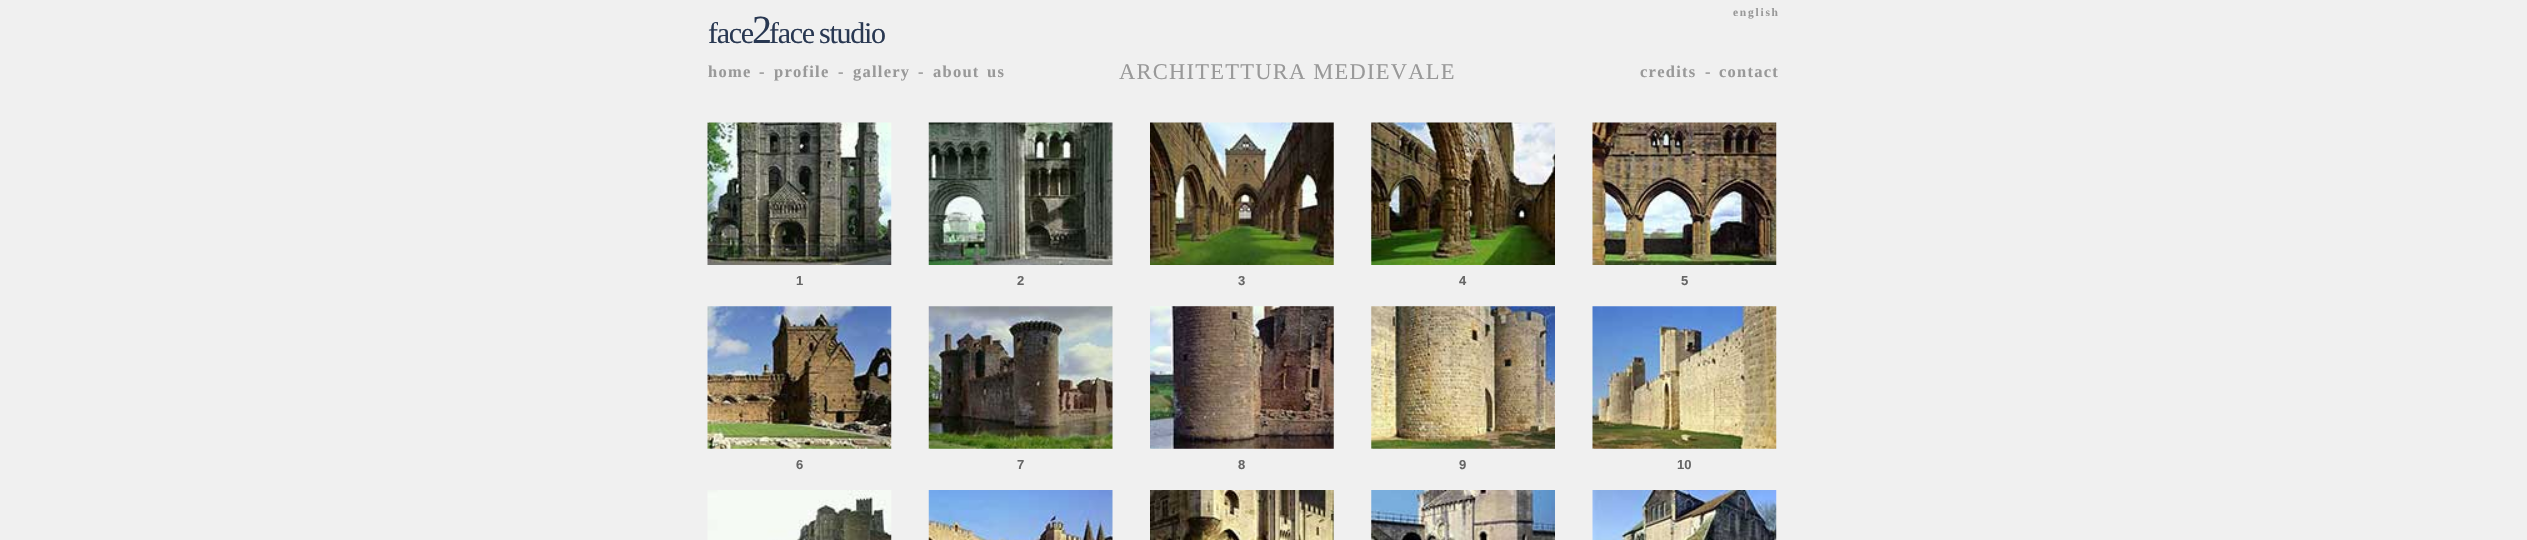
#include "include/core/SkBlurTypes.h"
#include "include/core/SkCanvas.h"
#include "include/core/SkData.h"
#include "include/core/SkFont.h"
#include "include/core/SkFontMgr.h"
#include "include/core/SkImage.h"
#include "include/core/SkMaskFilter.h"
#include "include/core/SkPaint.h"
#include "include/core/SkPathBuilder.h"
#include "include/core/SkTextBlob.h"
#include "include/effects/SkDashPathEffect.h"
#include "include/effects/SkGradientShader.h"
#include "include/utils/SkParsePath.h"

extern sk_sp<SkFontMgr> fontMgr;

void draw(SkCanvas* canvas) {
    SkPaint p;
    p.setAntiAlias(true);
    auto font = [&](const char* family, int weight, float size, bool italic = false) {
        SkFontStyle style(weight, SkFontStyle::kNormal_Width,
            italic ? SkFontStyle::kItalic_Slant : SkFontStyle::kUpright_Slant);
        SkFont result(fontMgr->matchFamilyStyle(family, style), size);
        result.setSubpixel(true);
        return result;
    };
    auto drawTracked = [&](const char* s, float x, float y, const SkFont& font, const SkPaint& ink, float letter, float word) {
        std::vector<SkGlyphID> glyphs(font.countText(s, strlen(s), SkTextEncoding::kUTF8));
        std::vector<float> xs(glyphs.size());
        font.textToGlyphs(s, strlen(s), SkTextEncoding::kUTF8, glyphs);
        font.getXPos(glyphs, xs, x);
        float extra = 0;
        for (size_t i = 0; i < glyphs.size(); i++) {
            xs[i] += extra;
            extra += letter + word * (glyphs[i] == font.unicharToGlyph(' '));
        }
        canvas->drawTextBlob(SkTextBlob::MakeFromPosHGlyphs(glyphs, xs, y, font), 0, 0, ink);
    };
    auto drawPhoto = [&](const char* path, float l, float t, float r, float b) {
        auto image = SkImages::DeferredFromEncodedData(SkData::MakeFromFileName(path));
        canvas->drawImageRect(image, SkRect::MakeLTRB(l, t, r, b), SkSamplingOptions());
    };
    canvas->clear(0xFFF0F0F0);
    auto font1 = font("Liberation Serif", 700, 11.5f);
    p.setColor(0xFF999999);
    drawTracked("english", 1733, 16, font1, p, 1.75f, 0);
    auto font2 = font("Liberation Serif", 400, 30);
    p.setColor(0xFF293852);
    drawTracked("face", 708, 43, font2, p, -1.25f, 0);
    auto font3 = font("Liberation Serif", 400, 40);
    drawTracked("2", 752, 43, font3, p, -4, 0);
    drawTracked("face", 769, 43, font2, p, -1.25f, 0);
    drawTracked("studio", 819, 43, font2, p, -1.25f, 0);
    auto font4 = font("Liberation Serif", 700, 16.5f);
    p.setColor(0xFF999999);
    {
        const struct { const char* s; float x, y; } items[] = {
            {"home", 708, 77},
            {"-", 759, 77},
            {"profile", 774, 77},
            {"-", 838, 77},
            {"gallery", 853, 77},
            {"-", 918, 77},
        };
        for (auto [s, x, y] : items) {
            drawTracked(s, x, y, font4, p, 1.25f, 0);
        }
    }
    drawTracked("about us", 933, 77, font4, p, 1.25f, 2);
    auto font5 = font("Liberation Serif", 400, 22.5f);
    drawTracked("ARCHITETTURA MEDIEVALE", 1119, 79, font5, p, 1.25f, 0);
    {
        const struct { const char* s; float x, y; } items[] = {
            {"credits", 1640, 77},
            {"-", 1705, 77},
            {"contact", 1719, 77},
        };
        for (auto [s, x, y] : items) {
            drawTracked(s, x, y, font4, p, 1.25f, 0);
        }
    }
    drawPhoto("media/2.png", 707, 122, 892, 265);
    drawPhoto("media/1.png", 707, 122, 709, 123);
    auto font6 = font("Liberation Sans", 700, 13);
    p.setColor(0xFF666666);
    canvas->drawString("1", 796, 285, font6, p);
    drawPhoto("media/3.png", 928, 122, 1113, 265);
    canvas->drawString("2", 1017, 285, font6, p);
    drawPhoto("media/4.png", 1150, 122, 1334, 265);
    canvas->drawString("3", 1238, 285, font6, p);
    drawPhoto("media/5.png", 1371, 122, 1555, 265);
    canvas->drawString("4", 1459, 285, font6, p);
    drawPhoto("media/6.png", 1592, 122, 1777, 265);
    canvas->drawString("5", 1681, 285, font6, p);
    drawPhoto("media/7.png", 707, 306, 892, 449);
    drawPhoto("media/8.png", 707, 448, 709, 449);
    canvas->drawString("6", 796, 469, font6, p);
    drawPhoto("media/9.png", 928, 306, 1113, 449);
    p.setColor(0xFF9DB186);
    canvas->drawRect(SkRect::MakeLTRB(929, 448, 930, 449), p);
    p.setColor(0xFF666666);
    canvas->drawString("7", 1017, 469, font6, p);
    drawPhoto("media/10.png", 1150, 306, 1334, 449);
    drawPhoto("media/11.png", 1150, 448, 1152, 449);
    canvas->drawString("8", 1238, 469, font6, p);
    drawPhoto("media/12.png", 1371, 306, 1555, 449);
    drawPhoto("media/13.png", 1371, 448, 1373, 449);
    canvas->drawString("9", 1459, 469, font6, p);
    drawPhoto("media/14.png", 1592, 306, 1777, 449);
    drawPhoto("media/15.png", 1592, 448, 1594, 449);
    canvas->drawString("10", 1677, 469, font6, p);
    drawPhoto("media/16.png", 707, 490, 892, 540);
    drawPhoto("media/17.png", 928, 490, 1113, 540);
    drawPhoto("media/18.png", 1150, 490, 1334, 540);
    drawPhoto("media/19.png", 1371, 490, 1555, 540);
    drawPhoto("media/20.png", 1592, 490, 1777, 540);
}
